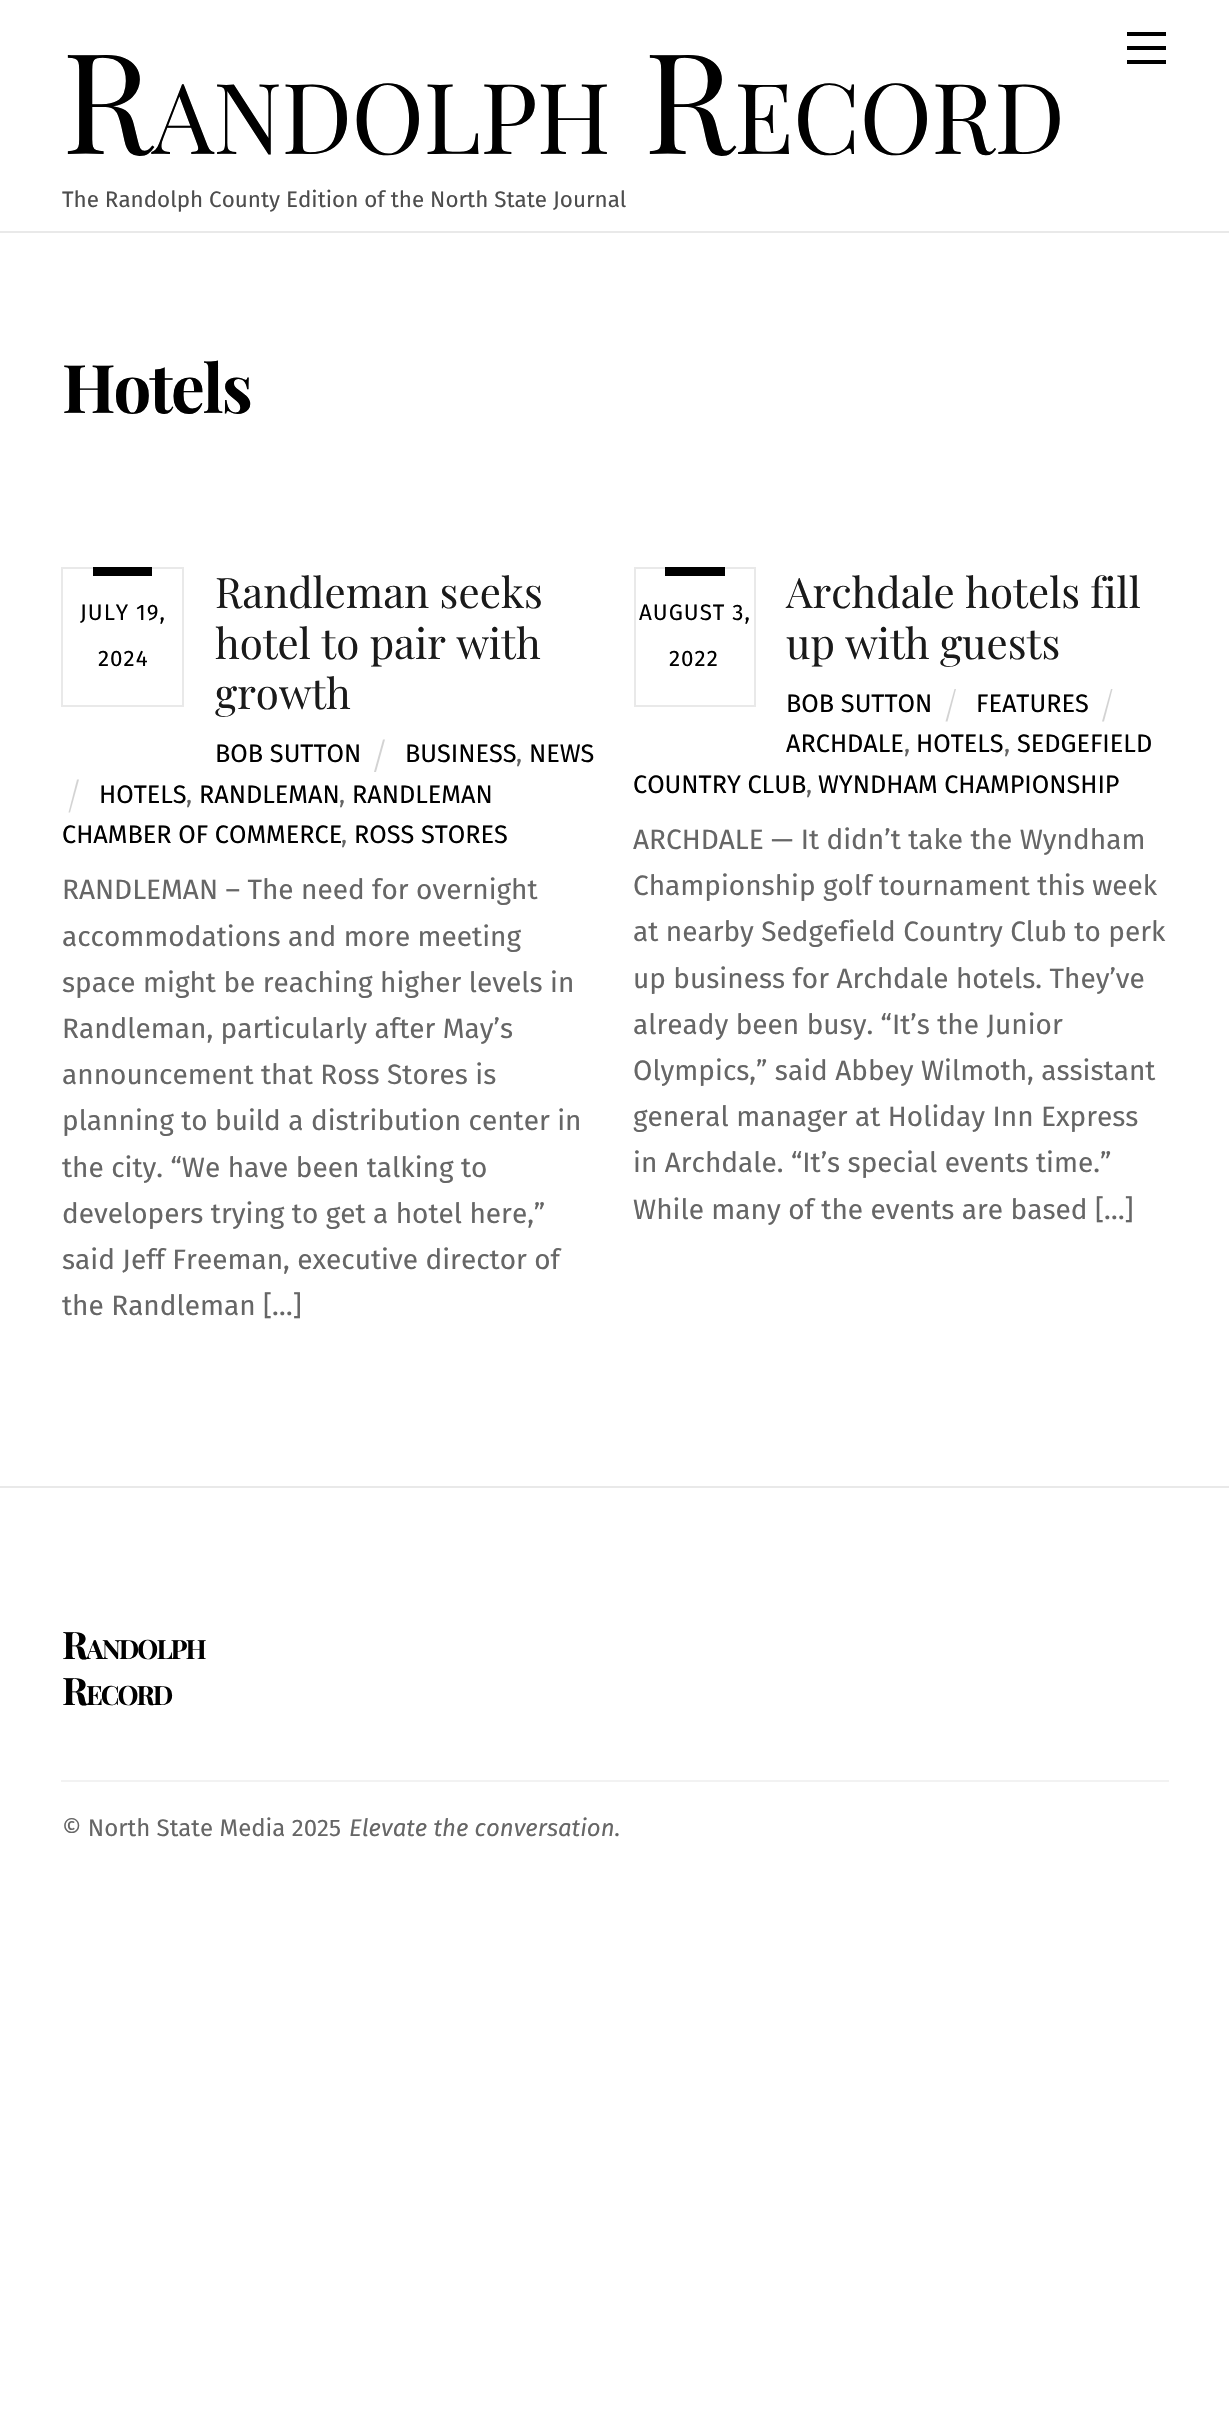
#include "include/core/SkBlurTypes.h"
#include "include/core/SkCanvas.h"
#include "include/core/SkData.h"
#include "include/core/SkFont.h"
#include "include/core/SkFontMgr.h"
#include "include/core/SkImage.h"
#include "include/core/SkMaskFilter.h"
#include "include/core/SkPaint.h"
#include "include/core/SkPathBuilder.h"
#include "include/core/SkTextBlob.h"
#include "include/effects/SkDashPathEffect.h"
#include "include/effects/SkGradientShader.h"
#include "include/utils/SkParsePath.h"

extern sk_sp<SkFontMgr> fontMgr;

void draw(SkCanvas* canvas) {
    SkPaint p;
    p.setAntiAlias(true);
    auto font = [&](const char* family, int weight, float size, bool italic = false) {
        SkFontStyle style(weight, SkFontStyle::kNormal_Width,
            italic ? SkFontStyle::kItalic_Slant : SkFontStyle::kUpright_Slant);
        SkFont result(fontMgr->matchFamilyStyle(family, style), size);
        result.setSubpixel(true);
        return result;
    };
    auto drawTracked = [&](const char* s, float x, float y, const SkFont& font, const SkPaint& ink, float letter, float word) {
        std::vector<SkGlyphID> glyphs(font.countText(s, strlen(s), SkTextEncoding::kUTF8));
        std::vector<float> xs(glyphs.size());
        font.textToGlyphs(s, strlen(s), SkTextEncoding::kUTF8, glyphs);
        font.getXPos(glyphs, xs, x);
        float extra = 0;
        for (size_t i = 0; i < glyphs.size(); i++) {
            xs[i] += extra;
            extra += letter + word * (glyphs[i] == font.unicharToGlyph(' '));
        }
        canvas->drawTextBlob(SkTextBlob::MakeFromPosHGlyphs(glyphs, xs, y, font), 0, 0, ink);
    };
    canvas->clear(0xFFFFFFFF);
    {
        const struct { float l, t, r, b; SkColor color; } items[] = {
            {0, 231, 1229, 233, 0xFFE9E9E9},
            {1127, 60, 1166, 64, 0xFF000000},
            {1127, 32, 1166, 36, 0xFF000000},
            {1127, 46, 1166, 50, 0xFF000000},
        };
        for (auto [l, t, r, b, color] : items) {
            p.setColor(color);
            canvas->drawRect(SkRect::MakeLTRB(l, t, r, b), p);
        }
    }
    auto font1 = font("Playfair Display", 400, 140);
    drawTracked("R", 62, 154, font1, p, -0.75f, 0);
    auto font2 = font("Playfair Display", 400, 98);
    drawTracked("ANDOLPH", 152, 154, font2, p, -0.75f, 0);
    drawTracked("R", 644, 154, font1, p, -0.75f, 0);
    drawTracked("ECORD", 734, 154, font2, p, -0.75f, 0);
    auto font3 = font("Fira Sans", 400, 22.4f);
    p.setColor(0xFF4D4D4D);
    canvas->drawString("The Randolph County Edition of the North State Journal", 62, 207, font3, p);
    auto font4 = font("Playfair Display", 700, 67);
    p.setColor(0xFF000000);
    drawTracked("Hotels", 62, 413, font4, p, -2, 0);
    p.setStyle(SkPaint::kStroke_Style);
    p.setStrokeWidth(2);
    p.setColor(0xFFE9E9E9);
    canvas->drawRect(SkRect::MakeLTRB(62, 568, 183, 706), p);
    p.setStyle(SkPaint::kFill_Style);
    p.setColor(0xFF000000);
    canvas->drawRect(SkRect::MakeLTRB(93, 567, 152, 576), p);
    drawTracked("JULY 19,", 80, 620, font3, p, 1, 0);
    drawTracked("2024", 98, 666, font3, p, 1, 0);
    auto font5 = font("Playfair Display", 400, 42);
    p.setColor(0xFF1A1A1A);
    {
        const struct { const char* s; float x, y; } items[] = {
            {"Randleman seeks", 215, 608},
            {"hotel to pair with", 215, 659},
            {"growth", 215, 709},
        };
        for (auto [s, x, y] : items) {
            canvas->drawString(s, x, y, font5, p);
        }
    }
    auto font6 = font("Fira Sans", 400, 25.25f);
    p.setColor(0xFF000000);
    canvas->drawString("BOB SUTTON", 215, 762, font6, p);
    p.setColor(0xFFD3D3D3);
    canvas->drawPath(SkPathBuilder().moveTo(383, 739.5f).lineTo(385, 739.5f).lineTo(376, 772).lineTo(374, 772).close().detach(), p);
    p.setColor(0xFF000000);
    canvas->drawString("BUSINESS", 405, 762, font6, p);
    p.setColor(0xFF666666);
    canvas->drawString(",", 516, 762, font6, p);
    p.setColor(0xFF000000);
    canvas->drawString("NEWS", 529, 762, font6, p);
    p.setColor(0xFFD3D3D3);
    canvas->drawPath(SkPathBuilder().moveTo(77, 779.5f).lineTo(79, 779.5f).lineTo(70, 812.5f).lineTo(68.5f, 812.5f).close().detach(), p);
    p.setColor(0xFF000000);
    canvas->drawString("HOTELS", 99, 803, font6, p);
    p.setColor(0xFF666666);
    canvas->drawString(",", 186, 803, font6, p);
    p.setColor(0xFF000000);
    canvas->drawString("RANDLEMAN", 199, 803, font6, p);
    p.setColor(0xFF666666);
    canvas->drawString(",", 339, 803, font6, p);
    p.setColor(0xFF000000);
    canvas->drawString("RANDLEMAN", 352, 803, font6, p);
    canvas->drawString("CHAMBER OF COMMERCE", 62, 843, font6, p);
    p.setColor(0xFF666666);
    canvas->drawString(",", 341, 843, font6, p);
    p.setColor(0xFF000000);
    canvas->drawString("ROSS STORES", 354, 843, font6, p);
    auto font7 = font("Fira Sans", 400, 28);
    p.setColor(0xFF666666);
    {
        const struct { const char* s; float x, y; } items[] = {
            {"RANDLEMAN – The need for overnight", 62, 899},
            {"accommodations and more meeting", 62, 946},
            {"space might be reaching higher levels in", 62, 992},
            {"Randleman, particularly after May’s", 62, 1038},
            {"announcement that Ross Stores is", 62, 1084},
            {"planning to build a distribution center in", 62, 1130},
            {"the city. “We have been talking to", 62, 1177},
            {"developers trying to get a hotel here,”", 62, 1223},
            {"said Jeff Freeman, executive director of", 62, 1269},
            {"the Randleman […]", 62, 1315},
        };
        for (auto [s, x, y] : items) {
            canvas->drawString(s, x, y, font7, p);
        }
    }
    p.setStyle(SkPaint::kStroke_Style);
    p.setColor(0xFFE9E9E9);
    canvas->drawRect(SkRect::MakeLTRB(635, 568, 755, 706), p);
    p.setStyle(SkPaint::kFill_Style);
    p.setColor(0xFF000000);
    canvas->drawRect(SkRect::MakeLTRB(665, 567, 725, 576), p);
    drawTracked("AUGUST 3,", 639, 620, font3, p, 1, 0);
    drawTracked("2022", 669, 666, font3, p, 1, 0);
    p.setColor(0xFF1A1A1A);
    canvas->drawString("Archdale hotels fill", 786, 608, font5, p);
    canvas->drawString("up with guests", 786, 659, font5, p);
    p.setColor(0xFF000000);
    canvas->drawString("BOB SUTTON", 786, 712, font6, p);
    p.setColor(0xFFD3D3D3);
    canvas->drawPath(SkPathBuilder().moveTo(954.5f, 689).lineTo(956, 689).lineTo(947.5f, 721.5f).lineTo(945.5f, 721.5f).close().detach(), p);
    p.setColor(0xFF000000);
    canvas->drawString("FEATURES", 976, 712, font6, p);
    p.setColor(0xFFD3D3D3);
    canvas->drawPath(SkPathBuilder().moveTo(1111, 689).lineTo(1112.5f, 689).lineTo(1104, 721.5f).lineTo(1102, 721.5f).close().detach(), p);
    p.setColor(0xFF000000);
    canvas->drawString("ARCHDALE", 786, 752, font6, p);
    p.setColor(0xFF666666);
    canvas->drawString(",", 904, 752, font6, p);
    p.setColor(0xFF000000);
    canvas->drawString("HOTELS", 916, 752, font6, p);
    p.setColor(0xFF666666);
    canvas->drawString(",", 1004, 752, font6, p);
    p.setColor(0xFF000000);
    canvas->drawString("SEDGEFIELD", 1017, 752, font6, p);
    canvas->drawString("COUNTRY CLUB", 633, 793, font6, p);
    p.setColor(0xFF666666);
    canvas->drawString(",", 806, 793, font6, p);
    p.setColor(0xFF000000);
    canvas->drawString("WYNDHAM CHAMPIONSHIP", 818, 793, font6, p);
    p.setColor(0xFF666666);
    {
        const struct { const char* s; float x, y; } items[] = {
            {"ARCHDALE — It didn’t take the Wyndham", 633, 849},
            {"Championship golf tournament this week", 633, 895},
            {"at nearby Sedgefield Country Club to perk", 633, 941},
            {"up business for Archdale hotels. They’ve", 633, 988},
            {"already been busy. “It’s the Junior", 633, 1034},
            {"Olympics,” said Abbey Wilmoth, assistant", 633, 1080},
            {"general manager at Holiday Inn Express", 633, 1126},
            {"in Archdale. “It’s special events time.”", 633, 1172},
            {"While many of the events are based […]", 633, 1219},
        };
        for (auto [s, x, y] : items) {
            canvas->drawString(s, x, y, font7, p);
        }
    }
    p.setColor(0xFFE9E9E9);
    canvas->drawRect(SkRect::MakeLTRB(0, 1486, 1229, 1488), p);
    auto font8 = font("Playfair Display", 700, 38);
    p.setColor(0xFF000000);
    drawTracked("R", 62, 1659, font8, p, -2, 0);
    auto font9 = font("Playfair Display", 700, 26.5f);
    drawTracked("ANDOLPH", 86, 1659, font9, p, -2, 0);
    drawTracked("R", 62, 1705, font8, p, -2, 0);
    drawTracked("ECORD", 86, 1705, font9, p, -2, 0);
    p.setColor(0xFFF2F2F2);
    canvas->drawRect(SkRect::MakeLTRB(61, 1780, 1169, 1782), p);
    auto font10 = font("Fira Sans", 400, 24);
    p.setColor(0xFF666666);
    canvas->drawString("© North State Media 2025", 62, 1836, font10, p);
    auto font11 = font("Fira Sans", 400, 24, true);
    canvas->drawString("Elevate the conversation.", 349, 1836, font11, p);
}
